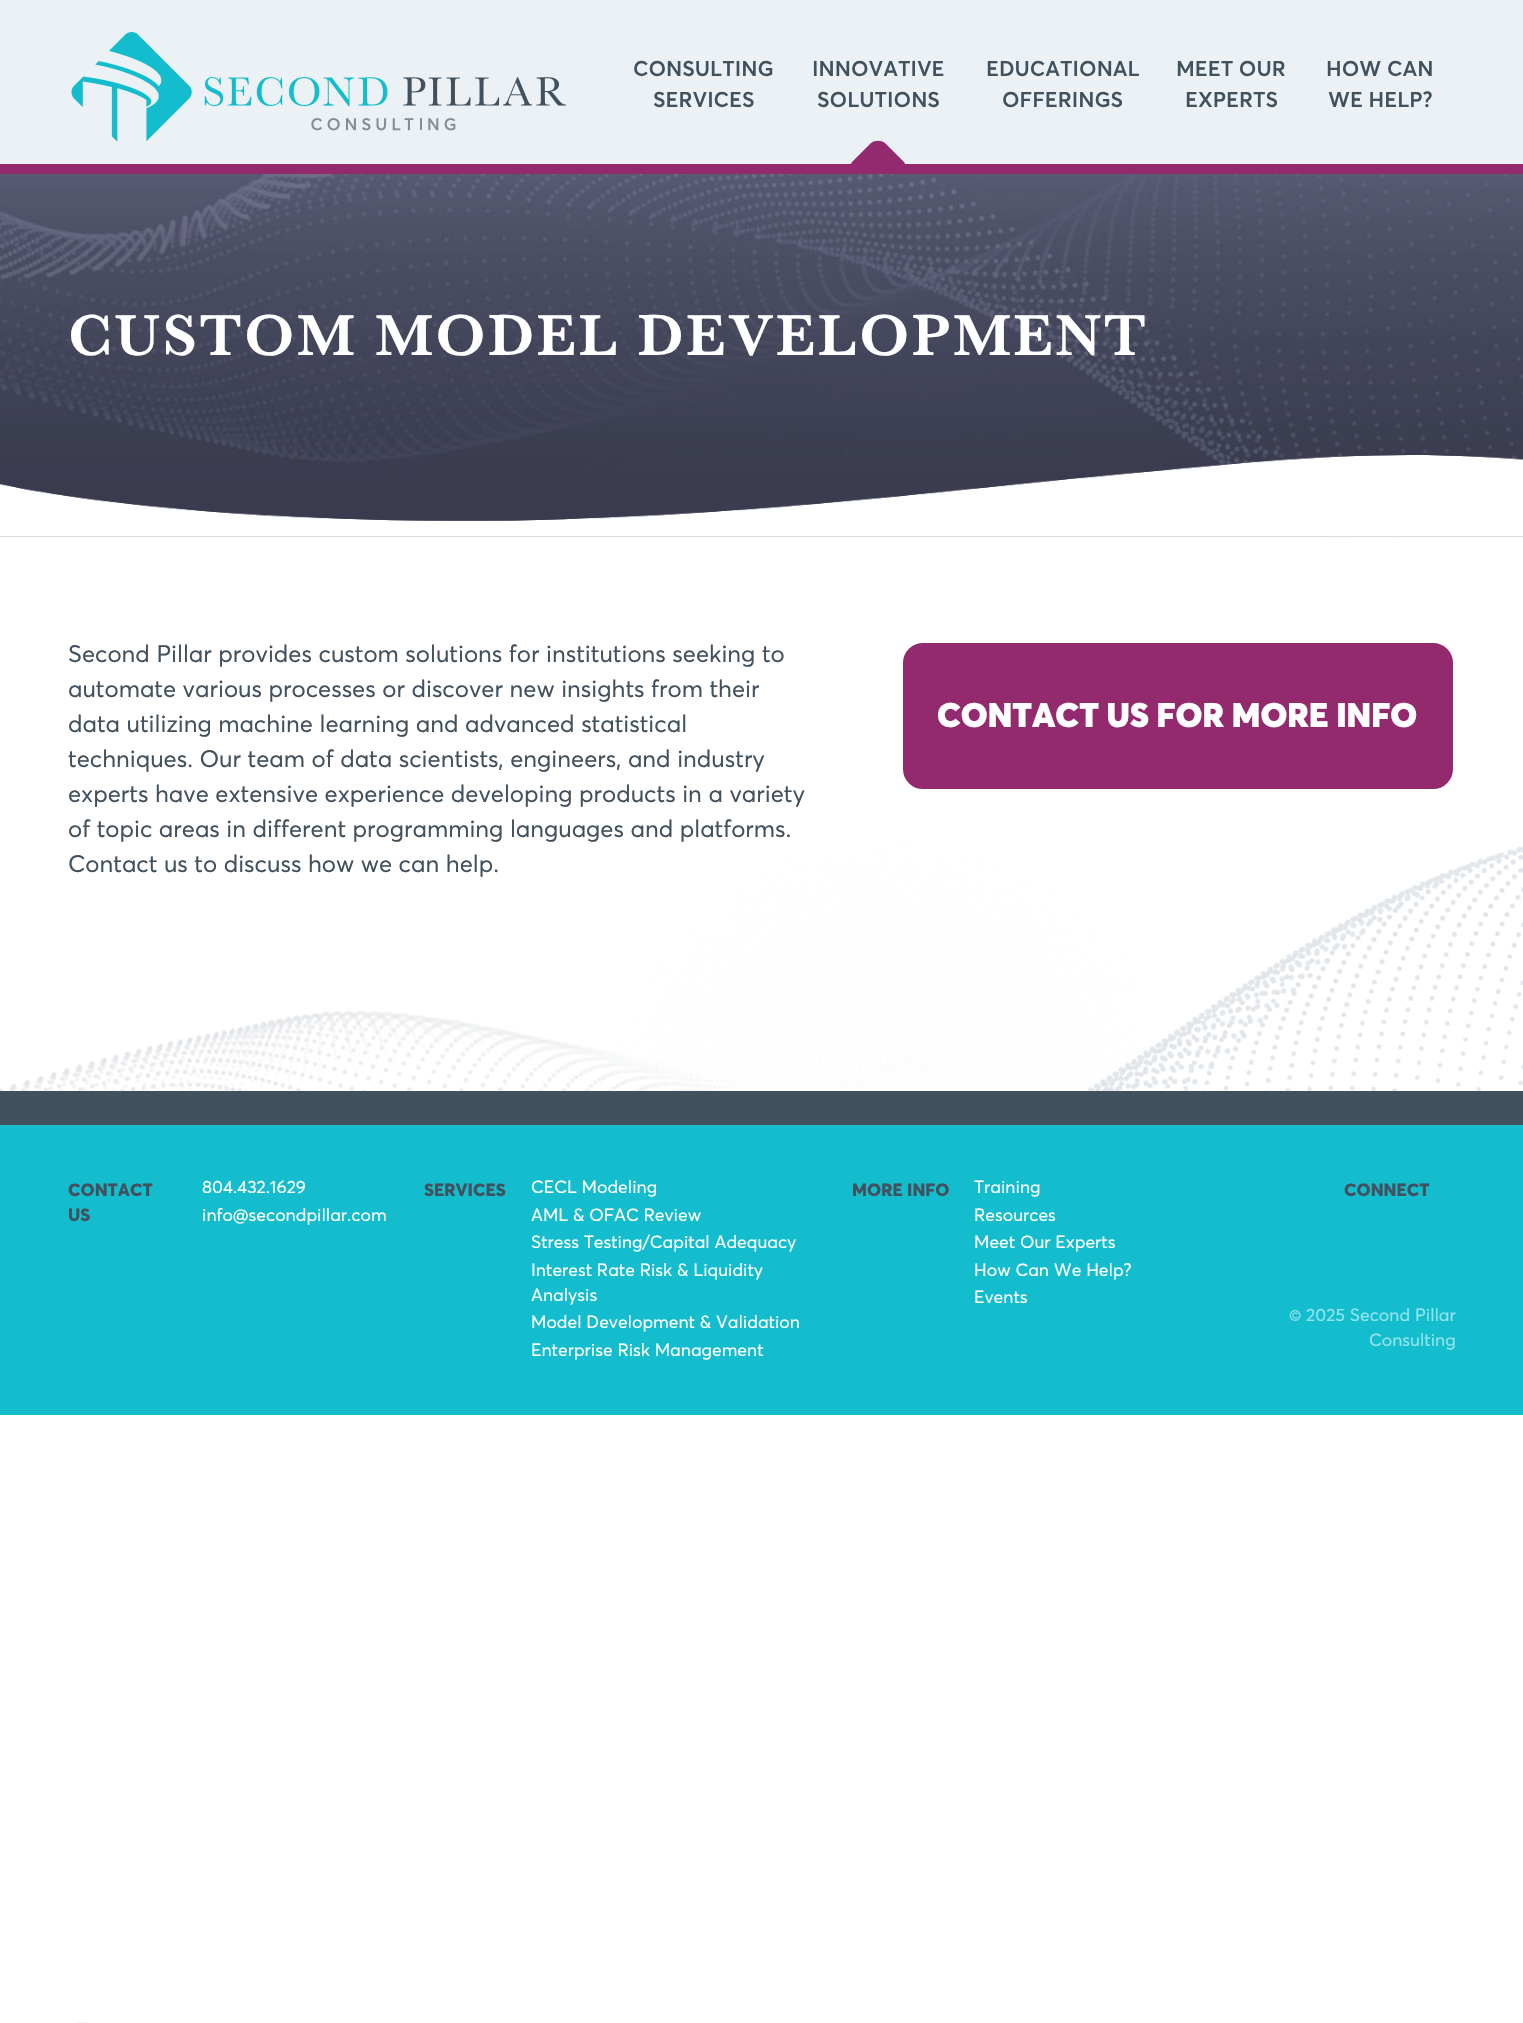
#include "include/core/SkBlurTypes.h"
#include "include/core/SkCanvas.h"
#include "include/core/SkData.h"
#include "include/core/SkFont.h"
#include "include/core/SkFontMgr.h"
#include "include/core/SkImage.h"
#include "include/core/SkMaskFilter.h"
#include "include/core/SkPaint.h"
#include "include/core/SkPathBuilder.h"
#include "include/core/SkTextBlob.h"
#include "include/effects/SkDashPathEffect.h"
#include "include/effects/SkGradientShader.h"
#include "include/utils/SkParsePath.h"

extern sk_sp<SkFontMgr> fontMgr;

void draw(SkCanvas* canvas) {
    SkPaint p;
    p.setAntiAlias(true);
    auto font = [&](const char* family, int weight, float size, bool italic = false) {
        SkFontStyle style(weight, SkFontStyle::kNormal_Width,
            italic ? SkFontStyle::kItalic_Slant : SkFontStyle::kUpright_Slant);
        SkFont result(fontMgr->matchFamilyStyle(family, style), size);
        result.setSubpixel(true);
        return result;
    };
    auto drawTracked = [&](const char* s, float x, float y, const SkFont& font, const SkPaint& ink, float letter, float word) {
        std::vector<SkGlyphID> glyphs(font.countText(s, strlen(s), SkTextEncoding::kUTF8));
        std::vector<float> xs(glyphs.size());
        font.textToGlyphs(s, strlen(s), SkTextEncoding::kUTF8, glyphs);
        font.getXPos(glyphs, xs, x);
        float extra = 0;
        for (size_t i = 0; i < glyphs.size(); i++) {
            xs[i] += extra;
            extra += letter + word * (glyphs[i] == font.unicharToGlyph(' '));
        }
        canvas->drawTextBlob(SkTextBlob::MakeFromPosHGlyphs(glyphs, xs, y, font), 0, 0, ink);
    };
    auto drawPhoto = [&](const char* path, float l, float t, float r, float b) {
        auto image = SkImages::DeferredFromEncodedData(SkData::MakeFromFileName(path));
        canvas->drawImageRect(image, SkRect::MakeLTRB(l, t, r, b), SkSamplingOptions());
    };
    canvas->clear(0xFFFFFFFF);
    p.setColor(0xFFEBF1F4);
    canvas->drawRect(SkRect::MakeLTRB(0, 0, 1523, 164), p);
    drawPhoto("media/1.png", 71, 32, 566, 142);
    auto font1 = font("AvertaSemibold", 600, 21.25f);
    p.setColor(0xFF42515E);
    {
        const struct { const char* s; float x, y; } items[] = {
            {"CONSULTING", 633, 76},
            {"SERVICES", 653, 107},
            {"INNOVATIVE", 812, 76},
            {"SOLUTIONS", 817, 107},
        };
        for (auto [s, x, y] : items) {
            canvas->drawString(s, x, y, font1, p);
        }
    }
    p.setColor(0xFF942A6E);
    canvas->drawRect(SkRect::MakeLTRB(0, 164, 1523, 174), p);
    canvas->save();
    canvas->clipRect(SkRect::MakeLTRB(789, 0, 968, 174));
    canvas->drawPath(SkPathBuilder().moveTo(885, 143).lineTo(903, 161).cubicTo(907, 165, 907, 171, 903, 175).lineTo(885, 193).cubicTo(881, 197, 875, 197, 871, 193).lineTo(853, 175).cubicTo(849, 171, 849, 165, 853, 161).lineTo(871, 143).cubicTo(875, 140, 881, 140, 885, 143).close().detach(), p);
    canvas->restore();
    p.setColor(0xFF42515E);
    {
        const struct { const char* s; float x, y; } items[] = {
            {"EDUCATIONAL", 986, 76},
            {"OFFERINGS", 1002, 107},
            {"MEET OUR", 1176, 76},
            {"EXPERTS", 1185, 107},
            {"HOW CAN", 1326, 76},
            {"WE HELP?", 1328, 107},
        };
        for (auto [s, x, y] : items) {
            canvas->drawString(s, x, y, font1, p);
        }
    }
    drawPhoto("media/2.png", 0, 174, 1523, 537);
    auto font2 = font("Baskerville", 600, 60);
    p.setColor(0xFFFFFFFF);
    drawTracked("CUSTOM MODEL DEVELOPMENT", 68, 355, font2, p, 2.5f, 0);
    drawPhoto("media/3.png", 0, 455, 1523, 537);
    auto font3 = font("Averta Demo", 400, 23.75f);
    p.setColor(0xFF42515E);
    {
        const struct { const char* s; float x, y; } items[] = {
            {"Second Pillar provides custom solutions for institutions seeking to", 68, 662},
            {"automate various processes or discover new insights from their", 68, 697},
            {"data utilizing machine learning and advanced statistical", 68, 732},
            {"techniques. Our team of data scientists, engineers, and industry", 68, 767},
            {"experts have extensive experience developing products in a variety", 68, 802},
        };
        for (auto [s, x, y] : items) {
            canvas->drawString(s, x, y, font3, p);
        }
    }
    drawPhoto("media/4.png", 0, 817, 1523, 1091);
    canvas->drawString("of topic areas in different programming languages and platforms.", 68, 837, font3, p);
    canvas->drawString("Contact us to discuss how we can help.", 68, 872, font3, p);
    p.setColor(0xFF942A6E);
    canvas->drawRoundRect(SkRect::MakeLTRB(904.5f, 644.5f, 1451.5f, 787.5f), 18.5f, 18.5f, p);
    p.setStyle(SkPaint::kStroke_Style);
    p.setStrokeWidth(3);
    canvas->drawRoundRect(SkRect::MakeLTRB(904.5f, 644.5f, 1451.5f, 787.5f), 18.5f, 18.5f, p);
    auto font4 = font("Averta", 900, 33.75f);
    p.setStyle(SkPaint::kFill_Style);
    p.setColor(0xFFFFFFFF);
    canvas->drawString("CONTACT US FOR MORE INFO", 937, 727, font4, p);
    p.setColor(0xFF13BDCE);
    canvas->drawRect(SkRect::MakeLTRB(0, 1125, 1523, 1415), p);
    p.setColor(0xFF42515E);
    canvas->drawRect(SkRect::MakeLTRB(0, 1091, 1523, 1125), p);
    auto font5 = font("Averta", 800, 17.5f);
    canvas->drawString("CONTACT", 68, 1196, font5, p);
    canvas->drawString("US", 68, 1221, font5, p);
    auto font6 = font("Averta Demo", 400, 17.5f);
    p.setColor(0xFFFFFFFF);
    canvas->drawString("804.432.1629", 202, 1193, font6, p);
    canvas->drawString("info@secondpillar.com", 202, 1221, font6, p);
    p.setColor(0xFF42515E);
    canvas->drawString("SERVICES", 424, 1196, font5, p);
    p.setColor(0xFFFFFFFF);
    {
        const struct { const char* s; float x, y; } items[] = {
            {"CECL Modeling", 531, 1193},
            {"AML & OFAC Review", 531, 1221},
            {"Stress Testing/Capital Adequacy", 531, 1248},
            {"Interest Rate Risk & Liquidity", 531, 1276},
            {"Analysis", 531, 1301},
            {"Model Development & Validation", 531, 1328},
            {"Enterprise Risk Management", 531, 1356},
        };
        for (auto [s, x, y] : items) {
            canvas->drawString(s, x, y, font6, p);
        }
    }
    p.setColor(0xFF42515E);
    canvas->drawString("MORE INFO", 852, 1196, font5, p);
    p.setColor(0xFFFFFFFF);
    {
        const struct { const char* s; float x, y; } items[] = {
            {"Training", 974, 1193},
            {"Resources", 974, 1221},
            {"Meet Our Experts", 974, 1248},
            {"How Can We Help?", 974, 1276},
            {"Events", 974, 1303},
        };
        for (auto [s, x, y] : items) {
            canvas->drawString(s, x, y, font6, p);
        }
    }
    p.setColor(0xFF42515E);
    canvas->drawString("CONNECT", 1344, 1196, font5, p);
    p.setColor(0xFF92E4ED);
    canvas->drawString("© 2025 Second Pillar", 1289, 1321, font6, p);
    canvas->drawString("Consulting", 1369, 1346, font6, p);
    p.setStyle(SkPaint::kStroke_Style);
    p.setStrokeWidth(2.5f);
    p.setColor(0xFFEBF1F4);
    canvas->drawPath(SkPathBuilder().moveTo(96.5f, 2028.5f).lineTo(132.5f, 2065).cubicTo(140, 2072, 140, 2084, 132.5f, 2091.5f).lineTo(96.5f, 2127.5f).cubicTo(89, 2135, 77, 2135, 70, 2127.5f).lineTo(33.5f, 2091.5f).cubicTo(26.5f, 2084, 26.5f, 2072, 33.5f, 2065).lineTo(70, 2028.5f).cubicTo(77, 2021.5f, 89, 2021.5f, 96.5f, 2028.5f).close().detach(), p);
}
